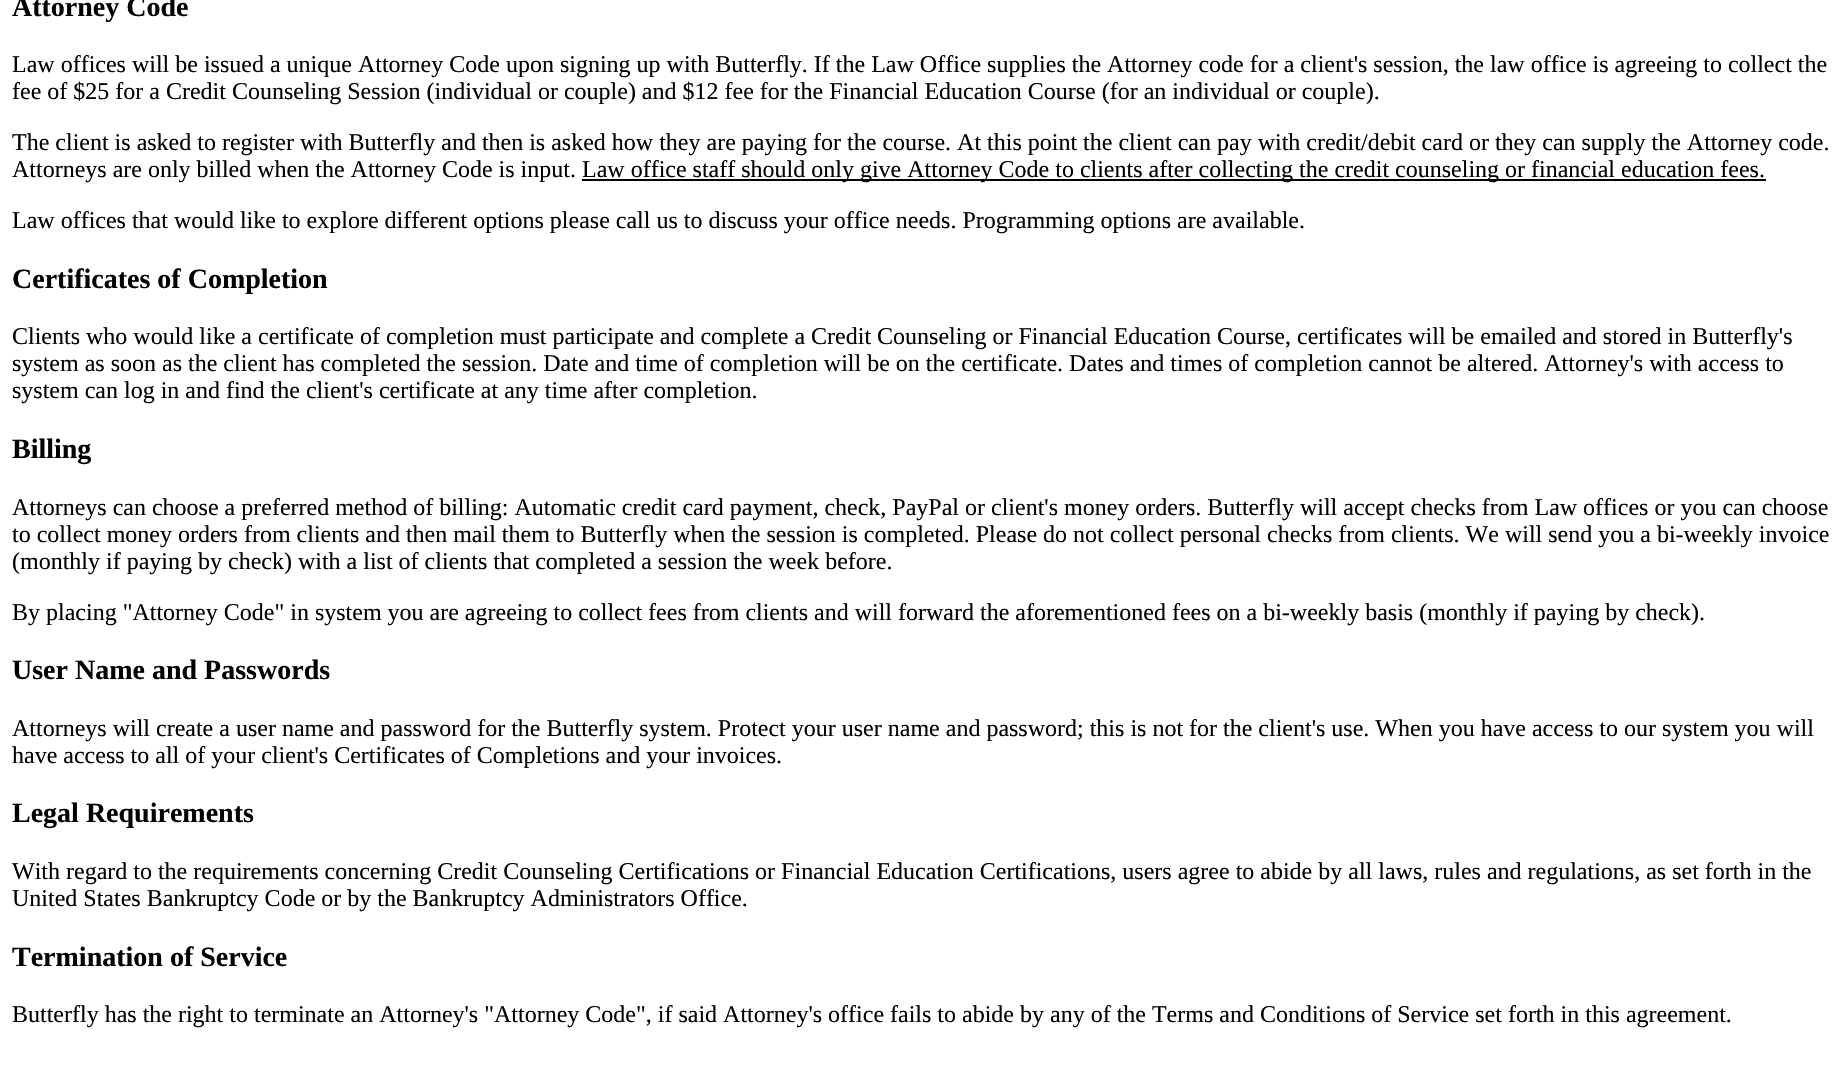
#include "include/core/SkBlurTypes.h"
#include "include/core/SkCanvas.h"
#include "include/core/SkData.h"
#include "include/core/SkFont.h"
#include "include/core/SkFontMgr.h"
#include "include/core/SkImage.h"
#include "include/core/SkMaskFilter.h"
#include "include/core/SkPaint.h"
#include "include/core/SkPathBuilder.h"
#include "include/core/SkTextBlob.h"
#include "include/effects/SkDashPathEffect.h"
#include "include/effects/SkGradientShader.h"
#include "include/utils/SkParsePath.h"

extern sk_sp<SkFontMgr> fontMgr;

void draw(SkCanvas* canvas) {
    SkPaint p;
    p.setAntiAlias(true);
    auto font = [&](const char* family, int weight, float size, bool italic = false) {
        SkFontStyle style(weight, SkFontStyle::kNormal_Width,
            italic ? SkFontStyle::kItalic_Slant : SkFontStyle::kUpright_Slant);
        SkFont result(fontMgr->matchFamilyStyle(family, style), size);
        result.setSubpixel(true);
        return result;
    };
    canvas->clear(0xFFFFFFFF);
    auto font1 = font("Liberation Serif", 700, 28);
    p.setColor(0xFF000000);
    canvas->drawString("Attorney Code", 12, 16, font1, p);
    auto font2 = font("Liberation Serif", 400, 24);
    {
        const struct { const char* s; float x, y; } items[] = {
            {"Law offices will be issued a unique Attorney Code upon signing up with Butterfly. If the Law Office supplies the Attorney code for a client's session, the law office is agreeing to collect the", 12, 72},
            {"fee of $25 for a Credit Counseling Session (individual or couple) and $12 fee for the Financial Education Course (for an individual or couple).", 12, 99},
            {"The client is asked to register with Butterfly and then is asked how they are paying for the course. At this point the client can pay with credit/debit card or they can supply the Attorney code.", 12, 150},
            {"Attorneys are only billed when the Attorney Code is input.", 12, 177},
        };
        for (auto [s, x, y] : items) {
            canvas->drawString(s, x, y, font2, p);
        }
    }
    canvas->drawRect(SkRect::MakeLTRB(582, 179, 1766, 181), p);
    canvas->drawString("Law office staff should only give Attorney Code to clients after collecting the credit counseling or financial education fees.", 582, 177, font2, p);
    canvas->drawString("Law offices that would like to explore different options please call us to discuss your office needs. Programming options are available.", 12, 228, font2, p);
    canvas->drawString("Certificates of Completion", 12, 288, font1, p);
    {
        const struct { const char* s; float x, y; } items[] = {
            {"Clients who would like a certificate of completion must participate and complete a Credit Counseling or Financial Education Course, certificates will be emailed and stored in Butterfly's", 12, 344},
            {"system as soon as the client has completed the session. Date and time of completion will be on the certificate. Dates and times of completion cannot be altered. Attorney's with access to", 12, 371},
            {"system can log in and find the client's certificate at any time after completion.", 12, 398},
        };
        for (auto [s, x, y] : items) {
            canvas->drawString(s, x, y, font2, p);
        }
    }
    canvas->drawString("Billing", 12, 458, font1, p);
    {
        const struct { const char* s; float x, y; } items[] = {
            {"Attorneys can choose a preferred method of billing: Automatic credit card payment, check, PayPal or client's money orders. Butterfly will accept checks from Law offices or you can choose", 12, 515},
            {"to collect money orders from clients and then mail them to Butterfly when the session is completed. Please do not collect personal checks from clients. We will send you a bi-weekly invoice", 12, 542},
            {"(monthly if paying by check) with a list of clients that completed a session the week before.", 12, 569},
            {"By placing \"Attorney Code\" in system you are agreeing to collect fees from clients and will forward the aforementioned fees on a bi-weekly basis (monthly if paying by check).", 12, 620},
        };
        for (auto [s, x, y] : items) {
            canvas->drawString(s, x, y, font2, p);
        }
    }
    canvas->drawString("User Name and Passwords", 12, 679, font1, p);
    canvas->drawString("Attorneys will create a user name and password for the Butterfly system. Protect your user name and password; this is not for the client's use. When you have access to our system you will", 12, 736, font2, p);
    canvas->drawString("have access to all of your client's Certificates of Completions and your invoices.", 12, 763, font2, p);
    canvas->drawString("Legal Requirements", 12, 822, font1, p);
    canvas->drawString("With regard to the requirements concerning Credit Counseling Certifications or Financial Education Certifications, users agree to abide by all laws, rules and regulations, as set forth in the", 12, 879, font2, p);
    canvas->drawString("United States Bankruptcy Code or by the Bankruptcy Administrators Office.", 12, 906, font2, p);
    canvas->drawString("Termination of Service", 12, 966, font1, p);
    canvas->drawString("Butterfly has the right to terminate an Attorney's \"Attorney Code\", if said Attorney's office fails to abide by any of the Terms and Conditions of Service set forth in this agreement.", 12, 1022, font2, p);
}
